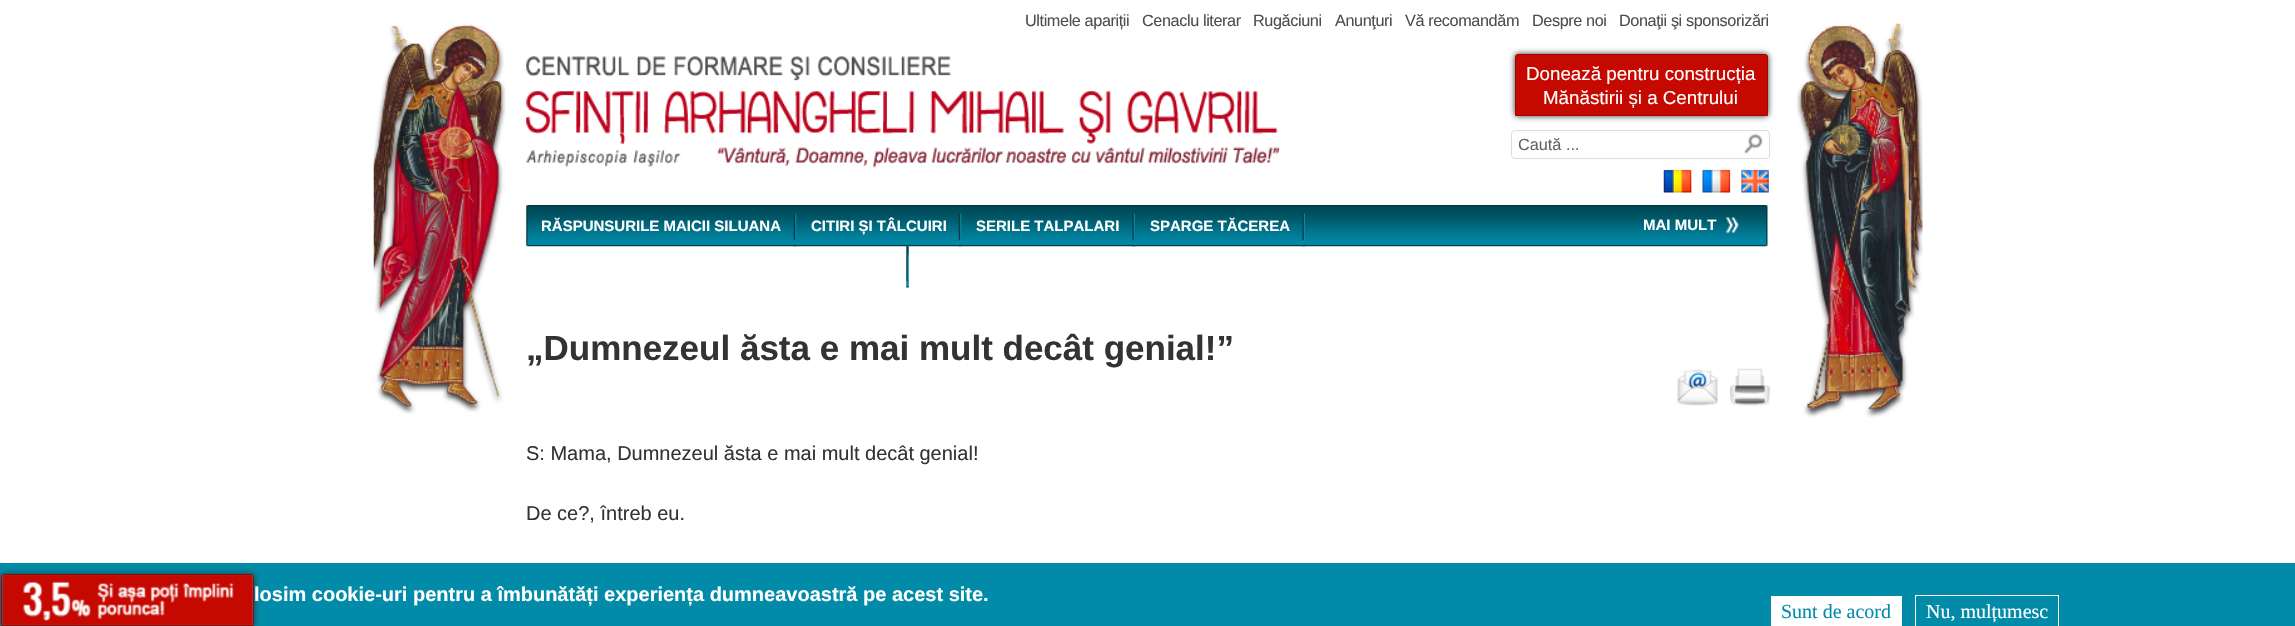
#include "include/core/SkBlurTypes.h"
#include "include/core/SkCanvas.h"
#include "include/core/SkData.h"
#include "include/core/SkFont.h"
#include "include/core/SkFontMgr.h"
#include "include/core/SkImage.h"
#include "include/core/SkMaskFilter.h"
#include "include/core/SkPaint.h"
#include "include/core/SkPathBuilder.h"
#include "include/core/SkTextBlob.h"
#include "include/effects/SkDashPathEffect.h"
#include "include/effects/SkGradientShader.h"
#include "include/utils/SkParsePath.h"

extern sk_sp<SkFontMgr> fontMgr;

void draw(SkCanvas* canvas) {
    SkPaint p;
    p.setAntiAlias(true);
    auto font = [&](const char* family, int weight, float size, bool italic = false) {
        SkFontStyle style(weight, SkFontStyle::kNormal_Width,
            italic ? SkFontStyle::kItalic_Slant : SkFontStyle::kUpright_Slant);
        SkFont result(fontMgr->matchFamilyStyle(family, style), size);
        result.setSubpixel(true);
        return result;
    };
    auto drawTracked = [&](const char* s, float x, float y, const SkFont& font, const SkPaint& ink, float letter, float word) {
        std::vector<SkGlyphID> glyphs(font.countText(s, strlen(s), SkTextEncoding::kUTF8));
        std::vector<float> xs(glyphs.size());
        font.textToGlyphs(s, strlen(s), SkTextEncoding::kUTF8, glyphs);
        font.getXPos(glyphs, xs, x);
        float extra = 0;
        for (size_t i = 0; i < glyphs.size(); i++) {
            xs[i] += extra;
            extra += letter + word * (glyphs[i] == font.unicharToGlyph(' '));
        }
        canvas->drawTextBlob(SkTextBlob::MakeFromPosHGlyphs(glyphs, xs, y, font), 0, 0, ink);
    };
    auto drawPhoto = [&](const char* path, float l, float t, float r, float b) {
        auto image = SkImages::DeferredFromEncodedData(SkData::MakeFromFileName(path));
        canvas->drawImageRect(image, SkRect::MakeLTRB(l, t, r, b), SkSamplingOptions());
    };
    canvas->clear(0xFFFFFFFF);
    drawPhoto("media/1.png", 373, 24, 506, 414);
    drawPhoto("media/2.png", 1796, 23, 1923, 418);
    auto font1 = font("Liberation Sans", 400, 16.25f);
    p.setColor(0xFF4E4E4E);
    {
        const struct { const char* s; float x, y; } items[] = {
            {"Ultimele apariții", 1025, 26},
            {"Cenaclu literar", 1142, 26},
            {"Rugăciuni", 1253, 26},
            {"Anunţuri", 1335, 26},
            {"Vă recomandăm", 1405, 26},
            {"Despre noi", 1532, 26},
            {"Donaţii şi sponsorizări", 1619, 26},
        };
        for (auto [s, x, y] : items) {
            drawTracked(s, x, y, font1, p, -0.4f, 0);
        }
    }
    drawPhoto("media/3.png", 526, 56, 1281, 168);
    p.setColor(0xFF333333);
    p.setMaskFilter(SkMaskFilter::MakeBlur(kNormal_SkBlurStyle, 3));
    canvas->drawRoundRect(SkRect::MakeLTRB(1515, 54, 1768, 116), 2.5f, 2.5f, p);
    p.setMaskFilter(nullptr);
    p.setColor(0xFFC50900);
    canvas->drawPath(SkPathBuilder().moveTo(1517.5f, 54.5f).lineTo(1765.5f, 54.5f).cubicTo(1766.5f, 54.5f, 1767.5f, 55.5f, 1767.5f, 56.5f).lineTo(1767.5f, 115.5f).lineTo(1515.5f, 115.5f).lineTo(1515.5f, 56.5f).cubicTo(1515.5f, 55.5f, 1516.5f, 54.5f, 1517.5f, 54.5f).close().detach(), p);
    p.setStyle(SkPaint::kStroke_Style);
    p.setStrokeWidth(1);
    p.setColor(0xFF9B0801);
    canvas->drawPath(SkPathBuilder().moveTo(1517.5f, 54.5f).lineTo(1765.5f, 54.5f).cubicTo(1766.5f, 54.5f, 1767.5f, 55.5f, 1767.5f, 56.5f).lineTo(1767.5f, 115.5f).lineTo(1515.5f, 115.5f).lineTo(1515.5f, 56.5f).cubicTo(1515.5f, 55.5f, 1516.5f, 54.5f, 1517.5f, 54.5f).close().detach(), p);
    auto font2 = font("Liberation Sans", 400, 18.75f);
    p.setStyle(SkPaint::kFill_Style);
    p.setColor(0xFFFFFFFF);
    canvas->drawString("Donează pentru construcția", 1526, 80, font2, p);
    canvas->drawString("Mănăstirii și a Centrului", 1543, 104, font2, p);
    drawPhoto("media/4.png", 1743, 133, 1763, 154);
    p.setStyle(SkPaint::kStroke_Style);
    p.setColor(0xFFDCDCDC);
    canvas->drawRoundRect(SkRect::MakeLTRB(1511.5f, 130.5f, 1769.5f, 158.5f), 3.5f, 3.5f, p);
    p.setStyle(SkPaint::kFill_Style);
    p.setColor(0xFF646464);
    canvas->drawString("Caută ...", 1518, 150, font1, p);
    drawPhoto("media/5.png", 1663, 169, 1692, 193);
    drawPhoto("media/6.png", 1702, 169, 1731, 193);
    drawPhoto("media/7.png", 1741, 169, 1769, 193);
    drawPhoto("media/8.png", 526, 205, 1768, 247);
    drawPhoto("media/9.png", 793, 213, 797, 247);
    auto font3 = font("Liberation Sans", 700, 15);
    p.setColor(0xFFFFFFFF);
    canvas->drawString("RĂSPUNSURILE MAICII SILUANA", 541, 231, font3, p);
    drawPhoto("media/9.png", 958, 213, 962, 247);
    canvas->drawString("CITIRI ȘI TÂLCUIRI", 811, 231, font3, p);
    drawPhoto("media/10.png", 1132, 213, 1135, 247);
    canvas->drawString("SERILE TALPALARI", 976, 231, font3, p);
    drawPhoto("media/10.png", 1302, 213, 1305, 247);
    canvas->drawString("SPARGE TĂCEREA", 1150, 231, font3, p);
    drawPhoto("media/11.png", 906, 246, 909, 288);
    canvas->drawString("MAI MULT", 1643, 230, font3, p);
    drawPhoto("media/12.png", 1726, 217, 1739, 234);
    auto font4 = font("Liberation Sans", 700, 35);
    p.setColor(0xFF333333);
    canvas->drawString("„Dumnezeul ăsta e mai mult decât genial!”", 526, 360, font4, p);
    drawPhoto("media/13.png", 1677, 369, 1718, 406);
    drawPhoto("media/14.png", 1730, 368, 1770, 406);
    auto font5 = font("Liberation Sans", 400, 20);
    canvas->drawString("S: Mama, Dumnezeul ăsta e mai mult decât genial!", 526, 460, font5, p);
    canvas->drawString("De ce?, întreb eu.", 526, 520, font5, p);
    p.setColor(0xFF018BA8);
    canvas->drawRect(SkRect::MakeLTRB(0, 563, 2295, 626), p);
    canvas->save();
    canvas->clipPath(SkPathBuilder(SkPathFillType::kEvenOdd).moveTo(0, 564).lineTo(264, 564).lineTo(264, 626).lineTo(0, 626).close().moveTo(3.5f, 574).lineTo(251.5f, 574).cubicTo(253, 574, 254, 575, 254, 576.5f).lineTo(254, 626).lineTo(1, 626).lineTo(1, 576.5f).cubicTo(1, 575, 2, 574, 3.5f, 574).close().detach(), true);
    p.setColor(0xFF333333);
    p.setMaskFilter(SkMaskFilter::MakeBlur(kNormal_SkBlurStyle, 3));
    canvas->drawRoundRect(SkRect::MakeLTRB(1, 574, 254, 626), 2.5f, 2.5f, p);
    p.setMaskFilter(nullptr);
    canvas->restore();
    drawPhoto("media/15.png", 2, 574, 254, 625);
    p.setStyle(SkPaint::kStroke_Style);
    p.setColor(0xFF9B0801);
    canvas->drawPath(SkPathBuilder().moveTo(3.5f, 574.5f).lineTo(251.5f, 574.5f).cubicTo(252.5f, 574.5f, 253.5f, 575.5f, 253.5f, 576.5f).lineTo(253.5f, 625.5f).lineTo(1.5f, 625.5f).lineTo(1.5f, 576.5f).cubicTo(1.5f, 575.5f, 2.5f, 574.5f, 3.5f, 574.5f).close().detach(), p);
    auto font6 = font("Liberation Sans", 700, 20);
    p.setStyle(SkPaint::kFill_Style);
    p.setColor(0xFFFFFFFF);
    canvas->drawString("losim cookie-uri pentru a îmbunătăți experiența dumneavoastră pe acest site.", 254, 601, font6, p);
    canvas->drawRect(SkRect::MakeLTRB(1771, 596, 1902, 626), p);
    auto font7 = font("Liberation Serif", 400, 20);
    p.setColor(0xFF018BA8);
    canvas->drawString("Sunt de acord", 1781, 618, font7, p);
    p.setStyle(SkPaint::kStroke_Style);
    p.setColor(0xFFFFFFFF);
    canvas->drawRect(SkRect::MakeLTRB(1915.5f, 595.5f, 2058.5f, 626.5f), p);
    p.setStyle(SkPaint::kFill_Style);
    canvas->drawString("Nu, mulțumesc", 1926, 618, font7, p);
}
